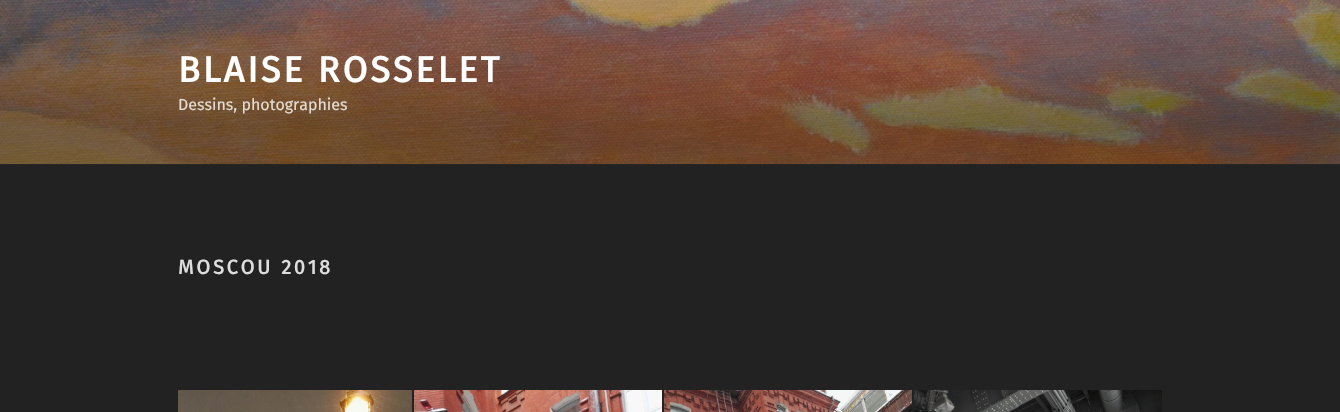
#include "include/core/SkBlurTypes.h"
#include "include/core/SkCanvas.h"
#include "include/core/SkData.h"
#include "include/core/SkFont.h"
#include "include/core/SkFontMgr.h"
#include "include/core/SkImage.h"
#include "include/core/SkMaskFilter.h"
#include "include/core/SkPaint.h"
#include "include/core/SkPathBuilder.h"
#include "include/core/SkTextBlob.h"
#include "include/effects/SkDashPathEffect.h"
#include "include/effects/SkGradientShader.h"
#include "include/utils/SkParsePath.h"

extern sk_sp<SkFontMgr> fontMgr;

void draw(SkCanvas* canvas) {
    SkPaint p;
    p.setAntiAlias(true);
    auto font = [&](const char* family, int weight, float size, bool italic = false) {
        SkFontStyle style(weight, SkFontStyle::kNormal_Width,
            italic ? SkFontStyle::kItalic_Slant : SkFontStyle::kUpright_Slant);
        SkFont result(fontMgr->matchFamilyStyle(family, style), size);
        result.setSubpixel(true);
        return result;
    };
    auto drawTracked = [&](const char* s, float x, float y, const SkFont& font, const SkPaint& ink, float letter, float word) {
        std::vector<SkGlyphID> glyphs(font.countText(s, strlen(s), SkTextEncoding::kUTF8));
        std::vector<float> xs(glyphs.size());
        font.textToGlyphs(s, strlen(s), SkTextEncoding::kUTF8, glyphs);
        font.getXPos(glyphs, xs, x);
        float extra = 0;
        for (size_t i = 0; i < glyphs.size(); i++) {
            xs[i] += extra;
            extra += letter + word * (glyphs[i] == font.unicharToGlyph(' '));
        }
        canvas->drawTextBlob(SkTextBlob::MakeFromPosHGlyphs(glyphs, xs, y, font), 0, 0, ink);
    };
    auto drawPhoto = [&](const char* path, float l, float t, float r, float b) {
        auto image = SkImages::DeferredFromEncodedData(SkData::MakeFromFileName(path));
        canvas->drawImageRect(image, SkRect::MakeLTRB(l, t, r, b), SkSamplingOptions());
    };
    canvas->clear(0xFF222222);
    p.setColor(0xFF262626);
    canvas->drawRect(SkRect::MakeLTRB(0, 164, 1340, 165), p);
    drawPhoto("media/1.png", 0, 0, 1340, 164);
    auto font1 = font("Fira Sans", 700, 36);
    p.setColor(0xFFFFFFFF);
    drawTracked("BLAISE ROSSELET", 178, 82, font1, p, 2.9f, 0);
    auto font2 = font("Fira Sans", 400, 16);
    p.setColor(0xFFE3DCD5);
    canvas->drawString("Dessins, photographies", 178, 110, font2, p);
    auto font3 = font("Fira Sans", 700, 20);
    p.setColor(0xFFDDDDDD);
    drawTracked("MOSCOU 2018", 178, 274, font3, p, 2.75f, 0);
    drawPhoto("media/2.png", 178, 390, 412, 412);
    drawPhoto("media/3.png", 414, 390, 662, 412);
    drawPhoto("media/4.png", 664, 390, 912, 412);
    drawPhoto("media/5.png", 914, 390, 1162, 412);
}
